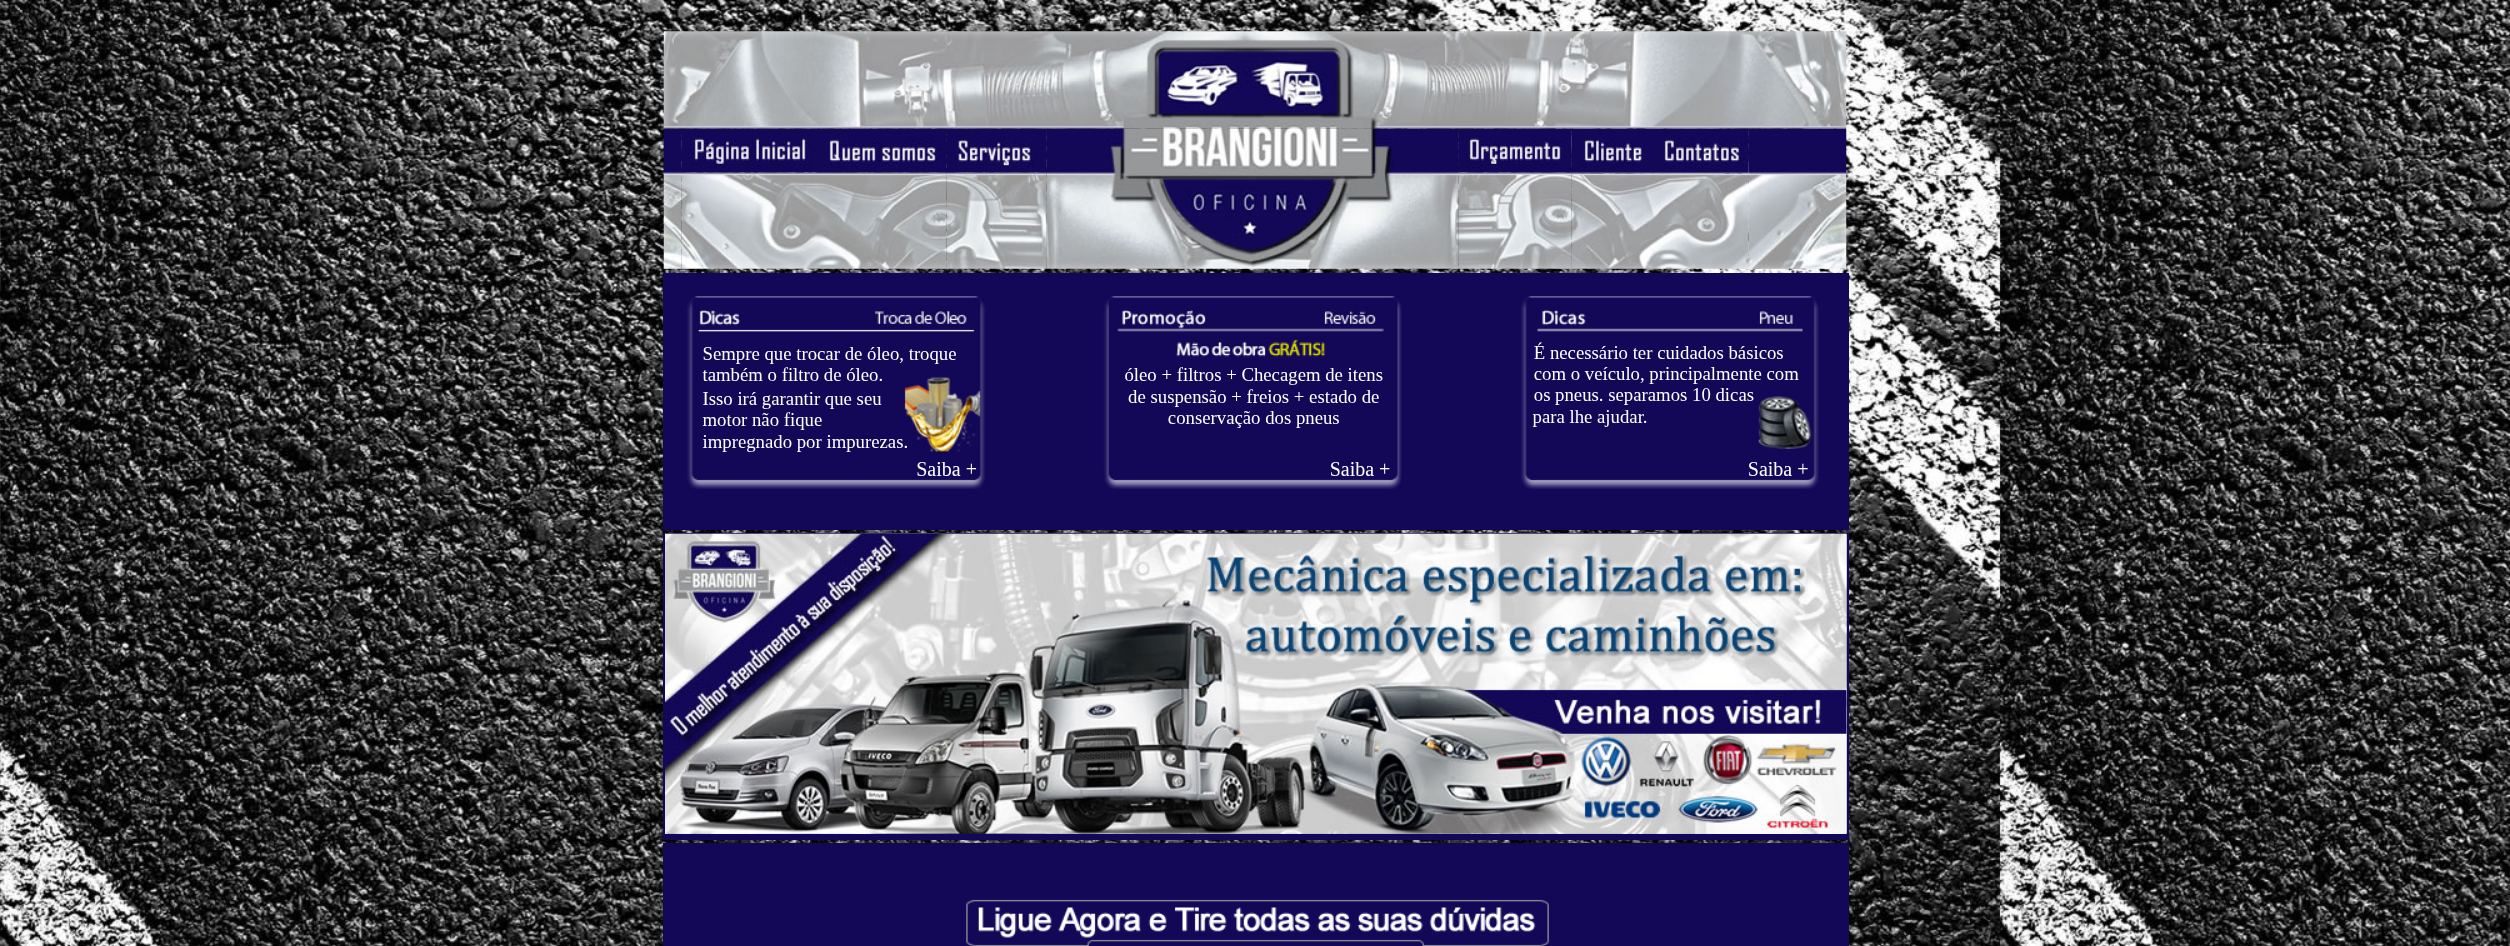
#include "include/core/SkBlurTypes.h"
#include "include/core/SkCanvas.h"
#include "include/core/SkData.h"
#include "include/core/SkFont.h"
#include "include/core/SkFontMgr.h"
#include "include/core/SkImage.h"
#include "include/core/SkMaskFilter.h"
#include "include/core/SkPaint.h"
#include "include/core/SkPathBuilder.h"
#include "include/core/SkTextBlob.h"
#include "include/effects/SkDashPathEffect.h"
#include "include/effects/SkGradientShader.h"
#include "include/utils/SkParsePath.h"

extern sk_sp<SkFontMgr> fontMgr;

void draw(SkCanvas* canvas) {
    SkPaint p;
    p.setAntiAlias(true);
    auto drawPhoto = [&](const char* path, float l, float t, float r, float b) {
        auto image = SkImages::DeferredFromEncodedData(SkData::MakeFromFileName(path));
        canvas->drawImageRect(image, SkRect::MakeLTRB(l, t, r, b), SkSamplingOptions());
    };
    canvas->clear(0xFFFFFFFF);
    drawPhoto("media/1.png", 0, 0, 2510, 946);
    drawPhoto("media/2.png", 663, 31, 1847, 129);
    drawPhoto("media/3.png", 663, 128, 682, 269);
    drawPhoto("media/4.png", 681, 128, 820, 173);
    drawPhoto("media/5.png", 820, 128, 945, 173);
    drawPhoto("media/6.png", 945, 128, 947, 269);
    drawPhoto("media/7.png", 946, 128, 1047, 173);
    drawPhoto("media/8.png", 1046, 128, 1459, 269);
    drawPhoto("media/9.png", 1458, 128, 1572, 173);
    drawPhoto("media/10.png", 1571, 128, 1655, 174);
    drawPhoto("media/11.png", 1655, 128, 1749, 174);
    drawPhoto("media/12.png", 1748, 128, 1847, 269);
    drawPhoto("media/13.png", 681, 172, 945, 269);
    drawPhoto("media/14.png", 946, 172, 1047, 269);
    drawPhoto("media/15.png", 1458, 172, 1572, 269);
    drawPhoto("media/16.png", 1571, 173, 1749, 269);
    p.setColor(0xFF130857);
    canvas->drawRect(SkRect::MakeLTRB(663, 273, 1849, 530), p);
    drawPhoto("media/17.png", 687, 293, 1819, 489);
    canvas->drawRect(SkRect::MakeLTRB(663, 533, 1849, 840), p);
    drawPhoto("media/18.png", 665, 533, 1847, 834);
    canvas->drawRect(SkRect::MakeLTRB(663, 843, 1849, 946), p);
    drawPhoto("media/19.png", 966, 899, 1549, 946);
}
